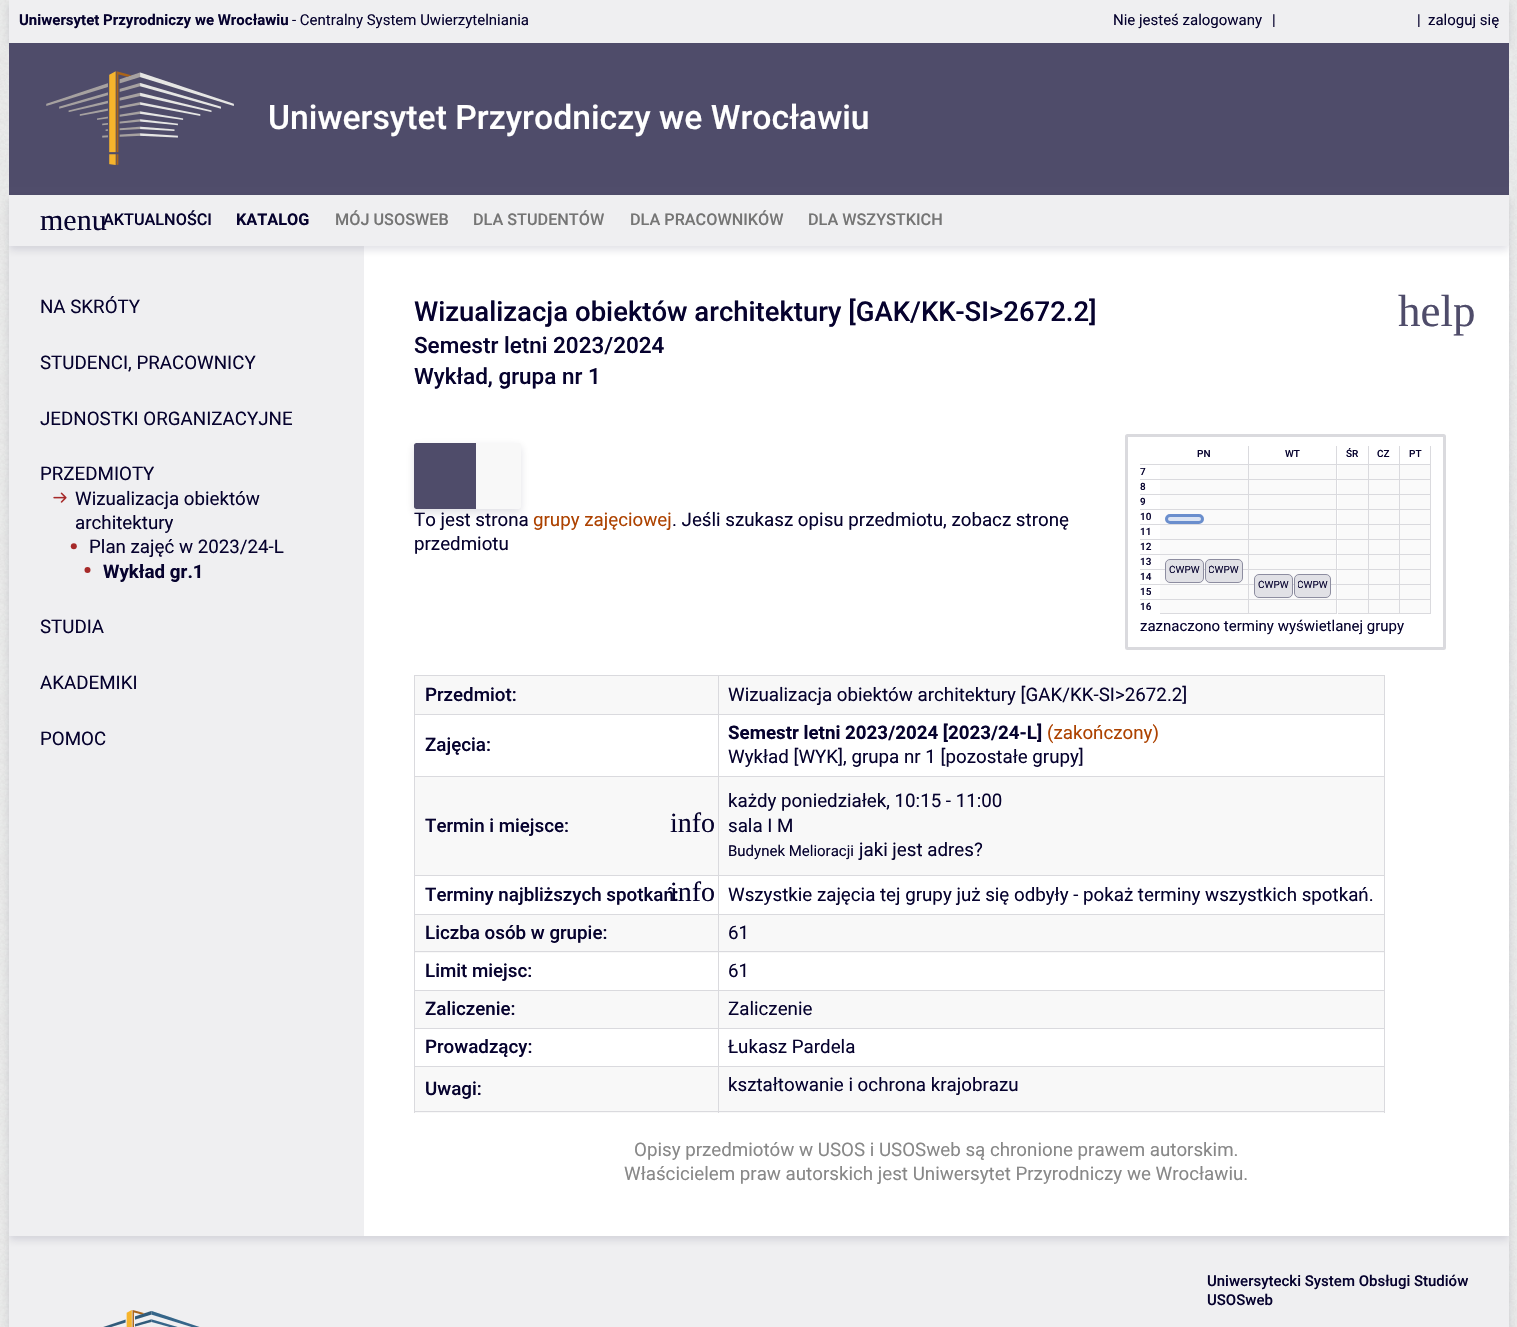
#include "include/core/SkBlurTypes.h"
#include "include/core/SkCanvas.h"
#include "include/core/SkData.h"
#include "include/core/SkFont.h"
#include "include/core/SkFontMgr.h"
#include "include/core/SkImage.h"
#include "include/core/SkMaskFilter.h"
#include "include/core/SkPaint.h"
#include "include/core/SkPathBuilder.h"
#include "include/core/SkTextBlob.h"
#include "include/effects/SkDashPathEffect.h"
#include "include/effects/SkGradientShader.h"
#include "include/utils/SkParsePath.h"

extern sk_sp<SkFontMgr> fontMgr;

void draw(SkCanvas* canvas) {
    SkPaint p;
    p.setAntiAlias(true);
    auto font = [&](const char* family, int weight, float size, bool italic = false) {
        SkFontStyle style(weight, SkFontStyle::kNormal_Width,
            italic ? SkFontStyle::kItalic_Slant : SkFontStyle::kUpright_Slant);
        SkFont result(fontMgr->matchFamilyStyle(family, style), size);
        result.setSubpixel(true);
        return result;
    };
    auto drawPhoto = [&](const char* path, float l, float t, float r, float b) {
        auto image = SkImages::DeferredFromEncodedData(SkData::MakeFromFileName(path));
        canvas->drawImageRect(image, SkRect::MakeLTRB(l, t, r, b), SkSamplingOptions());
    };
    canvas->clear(0xFFFFFFFF);
    drawPhoto("media/1.png", 0, 0, 1517, 1327);
    p.setColor(0x1F060633);
    p.setMaskFilter(SkMaskFilter::MakeBlur(kNormal_SkBlurStyle, 4));
    canvas->drawRect(SkRect::MakeLTRB(9, 4, 1509, 46), p);
    p.setMaskFilter(nullptr);
    p.setColor(0xFFEFEFF1);
    canvas->drawRect(SkRect::MakeLTRB(9, 0, 1509, 43), p);
    auto font1 = font("Roboto", 700, 15);
    p.setColor(0xFF06022E);
    canvas->drawString("Uniwersytet Przyrodniczy we Wrocławiu", 19, 25, font1, p);
    auto font2 = font("Roboto", 400, 15);
    {
        const struct { const char* s; float x, y; } items[] = {
            {"- Centralny System Uwierzytelniania", 292, 25},
            {"Nie jesteś zalogowany", 1113, 25},
            {"|", 1272, 25},
            {"|", 1417, 25},
            {"zaloguj się", 1428, 25},
        };
        for (auto [s, x, y] : items) {
            canvas->drawString(s, x, y, font2, p);
        }
    }
    p.setColor(0xFF4F4C6A);
    canvas->drawRect(SkRect::MakeLTRB(9, 43, 1509, 195), p);
    drawPhoto("media/2.png", 46, 71, 234, 165);
    auto font3 = font("Roboto", 500, 33.75f);
    p.setColor(0xFFFFFFFF);
    canvas->drawString("Uniwersytet Przyrodniczy we Wrocławiu", 268, 129, font3, p);
    p.setColor(0x1F060633);
    p.setMaskFilter(SkMaskFilter::MakeBlur(kNormal_SkBlurStyle, 4));
    canvas->drawRect(SkRect::MakeLTRB(9, 1240, 1509, 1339), p);
    p.setMaskFilter(nullptr);
    p.setColor(0xFFEFEFF1);
    canvas->drawRect(SkRect::MakeLTRB(9, 1236, 1509, 1327), p);
    p.setColor(0x1F060633);
    p.setMaskFilter(SkMaskFilter::MakeBlur(kNormal_SkBlurStyle, 4));
    canvas->drawRect(SkRect::MakeLTRB(9, 250, 1509, 1240), p);
    p.setMaskFilter(nullptr);
    p.setColor(0xFFFFFFFF);
    canvas->drawRect(SkRect::MakeLTRB(364, 246, 1509, 1236), p);
    p.setColor(0xFFEFEFF1);
    canvas->drawRect(SkRect::MakeLTRB(9, 246, 364, 1236), p);
    p.setColor(0x1F060633);
    p.setMaskFilter(SkMaskFilter::MakeBlur(kNormal_SkBlurStyle, 4));
    canvas->drawRect(SkRect::MakeLTRB(9, 199, 1509, 250), p);
    p.setMaskFilter(nullptr);
    p.setColor(0xFFEFEFF1);
    canvas->drawRect(SkRect::MakeLTRB(9, 195, 1509, 246), p);
    auto font4 = font("Liberation Serif", 400, 30);
    p.setColor(0xFF06022E);
    canvas->drawString("menu", 40, 230, font4, p);
    auto font5 = font("Roboto", 500, 16.25f);
    canvas->drawString("AKTUALNOŚCI", 103, 225, font5, p);
    auto font6 = font("Roboto", 700, 16.25f);
    canvas->drawString("KATALOG", 236, 225, font6, p);
    p.setColor(0xFF757575);
    {
        const struct { const char* s; float x, y; } items[] = {
            {"MÓJ USOSWEB", 335, 225},
            {"DLA STUDENTÓW", 473, 225},
            {"DLA PRACOWNIKÓW", 630, 225},
            {"DLA WSZYSTKICH", 808, 225},
        };
        for (auto [s, x, y] : items) {
            canvas->drawString(s, x, y, font5, p);
        }
    }
    auto font7 = font("Roboto", 400, 18.75f);
    p.setColor(0xFF06022E);
    {
        const struct { const char* s; float x, y; } items[] = {
            {"NA SKRÓTY", 40, 313},
            {"STUDENCI, PRACOWNICY", 40, 369},
            {"JEDNOSTKI ORGANIZACYJNE", 40, 425},
            {"PRZEDMIOTY", 40, 480},
        };
        for (auto [s, x, y] : items) {
            canvas->drawString(s, x, y, font7, p);
        }
    }
    drawPhoto("media/3.png", 53, 492, 67, 503);
    canvas->drawString("Wizualizacja obiektów", 75, 505, font7, p);
    canvas->drawString("architektury", 75, 529, font7, p);
    p.setColor(0xFFA62929);
    canvas->drawCircle(73.8f, 546.2f, 3, p);
    p.setColor(0xFF06022E);
    canvas->drawString("Plan zajęć w 2023/24-L", 89, 553, font7, p);
    p.setColor(0xFFA62929);
    canvas->drawCircle(87.5f, 570, 3, p);
    auto font8 = font("Roboto", 700, 18.75f);
    p.setColor(0xFF06022E);
    canvas->drawString("Wykład gr.1", 103, 578, font8, p);
    {
        const struct { const char* s; float x, y; } items[] = {
            {"STUDIA", 40, 633},
            {"AKADEMIKI", 40, 689},
            {"POMOC", 40, 745},
        };
        for (auto [s, x, y] : items) {
            canvas->drawString(s, x, y, font7, p);
        }
    }
    auto font9 = font("Roboto", 500, 27.5f);
    canvas->drawString("Wizualizacja obiektów architektury [GAK/KK-SI>2672.2]", 414, 321, font9, p);
    auto font10 = font("Roboto", 500, 22.5f);
    canvas->drawString("Semestr letni 2023/2024", 414, 353, font10, p);
    canvas->drawString("Wykład, grupa nr 1", 414, 384, font10, p);
    auto font11 = font("Liberation Serif", 400, 45);
    p.setColor(0xFF4F4C6A);
    canvas->drawString("help", 1398, 326, font11, p);
    p.setColor(0x1F060633);
    p.setMaskFilter(SkMaskFilter::MakeBlur(kNormal_SkBlurStyle, 4));
    canvas->drawRoundRect(SkRect::MakeLTRB(414, 446, 521, 513), 2.5f, 2.5f, p);
    p.setMaskFilter(nullptr);
    p.setColor(0xFF4F4C6A);
    canvas->drawPath(SkPathBuilder().moveTo(416.5f, 443).lineTo(476, 443).lineTo(476, 509).lineTo(416.5f, 509).cubicTo(415, 509, 414, 508, 414, 506.5f).lineTo(414, 445.5f).cubicTo(414, 444, 415, 443, 416.5f, 443).close().detach(), p);
    p.setColor(0xFFF8F8F8);
    canvas->drawPath(SkPathBuilder().moveTo(476, 443).lineTo(518.5f, 443).cubicTo(520, 443, 521, 444, 521, 445.5f).lineTo(521, 506.5f).cubicTo(521, 508, 520, 509, 518.5f, 509).lineTo(476, 509).close().detach(), p);
    p.setColor(0xFF06022E);
    canvas->drawString("To jest strona", 414, 526, font7, p);
    p.setColor(0xFFAD4200);
    canvas->drawString("grupy zajęciowej", 533, 526, font7, p);
    p.setColor(0xFF06022E);
    canvas->drawString(". Jeśli szukasz opisu przedmiotu, zobacz stronę", 672, 526, font7, p);
    canvas->drawString("przedmiotu", 414, 550, font7, p);
    p.setStyle(SkPaint::kStroke_Style);
    p.setStrokeWidth(3);
    p.setColor(0xFFDADADE);
    canvas->drawRoundRect(SkRect::MakeLTRB(1126.5f, 435.5f, 1444.5f, 648.5f), 1, 1, p);
    p.setStyle(SkPaint::kFill_Style);
    {
        const struct { float l, t, r, b; SkColor color; } items[] = {
            {1248, 446, 1249, 614, 0xFFDADADE},
            {1336, 446, 1337, 614, 0xFFDADADE},
            {1368, 446, 1369, 614, 0xFFDADADE},
            {1399, 446, 1400, 614, 0xFFDADADE},
            {1430, 446, 1431, 614, 0xFFDADADE},
            {1140, 464, 1431, 465, 0xFFDADADE},
        };
        for (auto [l, t, r, b, color] : items) {
            p.setColor(color);
            canvas->drawRect(SkRect::MakeLTRB(l, t, r, b), p);
        }
    }
    auto font12 = font("Roboto", 500, 10);
    p.setColor(0xFF06022E);
    canvas->drawString("7", 1140, 475, font12, p);
    {
        const struct { float l, t, r, b; SkColor color; } items[] = {
            {1160, 465, 1248, 613, 0xFFFAFAFA},
            {1249, 465, 1336, 613, 0xFFFAFAFA},
            {1338, 465, 1368, 613, 0xFFFAFAFA},
            {1369, 465, 1399, 613, 0xFFFAFAFA},
            {1400, 465, 1430, 613, 0xFFFAFAFA},
            {1140, 479, 1431, 480, 0xFFDADADE},
        };
        for (auto [l, t, r, b, color] : items) {
            p.setColor(color);
            canvas->drawRect(SkRect::MakeLTRB(l, t, r, b), p);
        }
    }
    p.setColor(0xFF06022E);
    canvas->drawString("8", 1140, 490, font12, p);
    p.setColor(0xFFDADADE);
    canvas->drawRect(SkRect::MakeLTRB(1140, 494, 1431, 495), p);
    p.setColor(0xFF06022E);
    canvas->drawString("9", 1140, 505, font12, p);
    p.setColor(0xFFDADADE);
    canvas->drawRect(SkRect::MakeLTRB(1140, 509, 1431, 510), p);
    p.setColor(0xFF06022E);
    canvas->drawString("10", 1140, 520, font12, p);
    p.setColor(0xFFDADADE);
    canvas->drawRect(SkRect::MakeLTRB(1140, 524, 1431, 525), p);
    p.setColor(0xFF06022E);
    canvas->drawString("11", 1140, 535, font12, p);
    p.setColor(0xFFDADADE);
    canvas->drawRect(SkRect::MakeLTRB(1140, 539, 1431, 540), p);
    p.setColor(0xFF06022E);
    canvas->drawString("12", 1140, 550, font12, p);
    p.setColor(0xFFDADADE);
    canvas->drawRect(SkRect::MakeLTRB(1140, 554, 1431, 555), p);
    p.setColor(0xFF06022E);
    canvas->drawString("13", 1140, 565, font12, p);
    p.setColor(0xFFDADADE);
    canvas->drawRect(SkRect::MakeLTRB(1140, 569, 1431, 570), p);
    p.setColor(0xFF06022E);
    canvas->drawString("14", 1140, 580, font12, p);
    p.setColor(0xFFDADADE);
    canvas->drawRect(SkRect::MakeLTRB(1140, 584, 1431, 585), p);
    p.setColor(0xFF06022E);
    canvas->drawString("15", 1140, 595, font12, p);
    p.setColor(0xFFDADADE);
    canvas->drawRect(SkRect::MakeLTRB(1140, 599, 1431, 600), p);
    p.setColor(0xFF06022E);
    canvas->drawString("16", 1140, 610, font12, p);
    canvas->drawString("PN", 1197, 457, font12, p);
    p.setColor(0xFFDADADE);
    canvas->drawRect(SkRect::MakeLTRB(1160, 613, 1248, 614), p);
    p.setColor(0xFFDBE4F3);
    canvas->drawRoundRect(SkRect::MakeLTRB(1166.5f, 515.5f, 1202.5f, 522.5f), 3.5f, 3.5f, p);
    p.setStyle(SkPaint::kStroke_Style);
    p.setColor(0xFF6A8ECD);
    canvas->drawRoundRect(SkRect::MakeLTRB(1166.5f, 515.5f, 1202.5f, 522.5f), 3.5f, 3.5f, p);
    p.setStyle(SkPaint::kFill_Style);
    p.setColor(0xFFE1E1E6);
    canvas->drawRoundRect(SkRect::MakeLTRB(1165.5f, 559.5f, 1203.5f, 582.5f), 4.5f, 4.5f, p);
    p.setStyle(SkPaint::kStroke_Style);
    p.setStrokeWidth(1);
    p.setColor(0xFF8D8DA0);
    canvas->drawRoundRect(SkRect::MakeLTRB(1165.5f, 559.5f, 1203.5f, 582.5f), 4.5f, 4.5f, p);
    canvas->save();
    canvas->clipRect(SkRect::MakeLTRB(1169, 565, 1200, 575));
    auto font13 = font("Roboto", 400, 10);
    p.setStyle(SkPaint::kFill_Style);
    p.setColor(0xFF06022E);
    canvas->drawString("ĆWPW", 1169, 573, font13, p);
    canvas->restore();
    p.setColor(0xFFE1E1E6);
    canvas->drawRoundRect(SkRect::MakeLTRB(1205.5f, 559.5f, 1242.5f, 582.5f), 4.5f, 4.5f, p);
    p.setStyle(SkPaint::kStroke_Style);
    p.setColor(0xFF8D8DA0);
    canvas->drawRoundRect(SkRect::MakeLTRB(1205.5f, 559.5f, 1242.5f, 582.5f), 4.5f, 4.5f, p);
    canvas->save();
    canvas->clipRect(SkRect::MakeLTRB(1209, 565, 1239, 575));
    p.setStyle(SkPaint::kFill_Style);
    p.setColor(0xFF06022E);
    canvas->drawString("ĆWPW", 1208, 573, font13, p);
    canvas->restore();
    canvas->drawString("WT", 1285, 457, font12, p);
    p.setColor(0xFFDADADE);
    canvas->drawRect(SkRect::MakeLTRB(1249, 613, 1336, 614), p);
    p.setColor(0xFFE1E1E6);
    canvas->drawRoundRect(SkRect::MakeLTRB(1254.5f, 574.5f, 1292.5f, 597.5f), 4.5f, 4.5f, p);
    p.setStyle(SkPaint::kStroke_Style);
    p.setColor(0xFF8D8DA0);
    canvas->drawRoundRect(SkRect::MakeLTRB(1254.5f, 574.5f, 1292.5f, 597.5f), 4.5f, 4.5f, p);
    canvas->save();
    canvas->clipRect(SkRect::MakeLTRB(1258, 580, 1289, 590));
    p.setStyle(SkPaint::kFill_Style);
    p.setColor(0xFF06022E);
    canvas->drawString("ĆWPW", 1258, 588, font13, p);
    canvas->restore();
    p.setColor(0xFFE1E1E6);
    canvas->drawRoundRect(SkRect::MakeLTRB(1294.5f, 574.5f, 1330.5f, 597.5f), 4.5f, 4.5f, p);
    p.setStyle(SkPaint::kStroke_Style);
    p.setColor(0xFF8D8DA0);
    canvas->drawRoundRect(SkRect::MakeLTRB(1294.5f, 574.5f, 1330.5f, 597.5f), 4.5f, 4.5f, p);
    canvas->save();
    canvas->clipRect(SkRect::MakeLTRB(1298, 580, 1328, 590));
    p.setStyle(SkPaint::kFill_Style);
    p.setColor(0xFF06022E);
    canvas->drawString("ĆWPW", 1297, 588, font13, p);
    canvas->restore();
    canvas->drawString("ŚR", 1346, 457, font12, p);
    p.setColor(0xFFDADADE);
    canvas->drawRect(SkRect::MakeLTRB(1338, 613, 1368, 614), p);
    p.setColor(0xFF06022E);
    canvas->drawString("CZ", 1377, 457, font12, p);
    p.setColor(0xFFDADADE);
    canvas->drawRect(SkRect::MakeLTRB(1369, 613, 1399, 614), p);
    p.setColor(0xFF06022E);
    canvas->drawString("PT", 1409, 457, font12, p);
    p.setColor(0xFFDADADE);
    canvas->drawRect(SkRect::MakeLTRB(1400, 613, 1430, 614), p);
    p.setColor(0xFF06022E);
    canvas->drawString("zaznaczono terminy wyświetlanej grupy", 1140, 631, font2, p);
    {
        const struct { float l, t, r, b; SkColor color; } items[] = {
            {415, 676, 718, 714, 0xFFF8F8F8},
            {718, 675, 1385, 676, 0xFFDADADE},
            {718, 714, 1385, 715, 0xFFDADADE},
            {718, 776, 1385, 777, 0xFFDADADE},
            {718, 875, 1385, 876, 0xFFDADADE},
            {718, 914, 1385, 915, 0xFFDADADE},
            {415, 915, 718, 953, 0xFFF8F8F8},
            {719, 915, 1384, 953, 0xFFF8F8F8},
            {718, 951, 1385, 952, 0xFFDADADE},
            {718, 990, 1385, 991, 0xFFDADADE},
            {718, 1028, 1385, 1029, 0xFFDADADE},
            {718, 1066, 1385, 1067, 0xFFDADADE},
            {719, 1067, 1384, 1113, 0xFFF8F8F8},
            {1384, 1066, 1385, 1113, 0xFFDADADE},
            {718, 1111, 1385, 1112, 0xFFDADADE},
            {718, 1066, 719, 1113, 0xFFDADADE},
            {414, 1066, 719, 1067, 0xFFDADADE},
            {718, 1028, 719, 1068, 0xFFDADADE},
            {414, 1028, 719, 1029, 0xFFDADADE},
            {718, 990, 719, 1029, 0xFFDADADE},
            {414, 990, 719, 991, 0xFFDADADE},
            {718, 951, 719, 991, 0xFFDADADE},
            {414, 951, 719, 952, 0xFFDADADE},
            {718, 914, 719, 953, 0xFFDADADE},
            {414, 914, 719, 915, 0xFFDADADE},
            {718, 875, 719, 915, 0xFFDADADE},
            {414, 875, 719, 876, 0xFFDADADE},
            {718, 776, 719, 876, 0xFFDADADE},
            {414, 776, 719, 777, 0xFFDADADE},
            {718, 714, 719, 778, 0xFFDADADE},
            {414, 714, 719, 715, 0xFFDADADE},
            {718, 675, 719, 715, 0xFFDADADE},
            {414, 675, 719, 676, 0xFFDADADE},
            {415, 1067, 718, 1113, 0xFFF8F8F8},
            {414, 1111, 719, 1112, 0xFFDADADE},
            {414, 1066, 415, 1113, 0xFFDADADE},
            {414, 1028, 415, 1068, 0xFFDADADE},
            {414, 990, 415, 1029, 0xFFDADADE},
            {414, 951, 415, 991, 0xFFDADADE},
            {414, 914, 415, 953, 0xFFDADADE},
            {414, 875, 415, 915, 0xFFDADADE},
            {414, 776, 415, 876, 0xFFDADADE},
            {414, 714, 415, 778, 0xFFDADADE},
            {414, 675, 415, 715, 0xFFDADADE},
        };
        for (auto [l, t, r, b, color] : items) {
            p.setColor(color);
            canvas->drawRect(SkRect::MakeLTRB(l, t, r, b), p);
        }
    }
    auto font14 = font("Roboto", 500, 18.75f);
    p.setColor(0xFF06022E);
    canvas->drawString("Przedmiot:", 425, 701, font14, p);
    {
        const struct { float l, t, r, b; SkColor color; } items[] = {
            {719, 676, 1384, 714, 0xFFF8F8F8},
            {1384, 1028, 1385, 1068, 0xFFDADADE},
            {1384, 990, 1385, 1029, 0xFFDADADE},
            {1384, 951, 1385, 991, 0xFFDADADE},
            {1384, 914, 1385, 953, 0xFFDADADE},
            {1384, 875, 1385, 915, 0xFFDADADE},
            {1384, 776, 1385, 876, 0xFFDADADE},
            {1384, 714, 1385, 778, 0xFFDADADE},
            {1384, 675, 1385, 715, 0xFFDADADE},
        };
        for (auto [l, t, r, b, color] : items) {
            p.setColor(color);
            canvas->drawRect(SkRect::MakeLTRB(l, t, r, b), p);
        }
    }
    p.setColor(0xFF06022E);
    canvas->drawString("Wizualizacja obiektów architektury [GAK/KK-SI>2672.2]", 728, 701, font7, p);
    canvas->drawString("Zajęcia:", 425, 751, font14, p);
    canvas->drawString("Semestr letni 2023/2024 [2023/24-L]", 728, 739, font8, p);
    p.setColor(0xFFAD4200);
    canvas->drawString("(zakończony)", 1047, 739, font7, p);
    p.setColor(0xFF06022E);
    canvas->drawString("Wykład [WYK], grupa nr 1 [pozostałe grupy]", 728, 763, font7, p);
    p.setColor(0xFFF8F8F8);
    canvas->drawRect(SkRect::MakeLTRB(415, 777, 718, 875), p);
    p.setColor(0xFF06022E);
    canvas->drawString("Termin i miejsce:", 425, 832, font14, p);
    auto font15 = font("Liberation Serif", 400, 28);
    canvas->drawString("info", 670, 832, font15, p);
    p.setColor(0xFFF8F8F8);
    canvas->drawRect(SkRect::MakeLTRB(719, 777, 1384, 875), p);
    p.setColor(0xFF06022E);
    canvas->drawString("każdy poniedziałek, 10:15 - 11:00", 728, 807, font7, p);
    canvas->drawString("sala I M", 728, 832, font7, p);
    canvas->drawString("Budynek Melioracji", 728, 856, font2, p);
    canvas->drawString("jaki jest adres?", 859, 856, font7, p);
    canvas->drawString("Terminy najbliższych spotkań:", 425, 901, font14, p);
    canvas->drawString("info", 670, 901, font15, p);
    canvas->drawString("Wszystkie zajęcia tej grupy już się odbyły - pokaż terminy wszystkich spotkań.", 728, 901, font7, p);
    canvas->drawString("Liczba osób w grupie:", 425, 939, font14, p);
    canvas->drawString("61", 728, 939, font7, p);
    canvas->drawString("Limit miejsc:", 425, 977, font14, p);
    canvas->drawString("61", 728, 977, font7, p);
    p.setColor(0xFFF8F8F8);
    canvas->drawRect(SkRect::MakeLTRB(415, 991, 718, 1028), p);
    p.setColor(0xFF06022E);
    canvas->drawString("Zaliczenie:", 425, 1015, font14, p);
    p.setColor(0xFFF8F8F8);
    canvas->drawRect(SkRect::MakeLTRB(719, 991, 1384, 1028), p);
    p.setColor(0xFF06022E);
    canvas->drawString("Zaliczenie", 728, 1015, font7, p);
    canvas->drawString("Prowadzący:", 425, 1053, font14, p);
    canvas->drawString("Łukasz Pardela", 728, 1053, font7, p);
    canvas->drawString("Uwagi:", 425, 1095, font14, p);
    canvas->drawString("kształtowanie i ochrona krajobrazu", 728, 1091, font7, p);
    p.setColor(0xFF888888);
    canvas->drawString("Opisy przedmiotów w USOS i USOSweb są chronione prawem autorskim.", 634, 1156, font7, p);
    canvas->drawString("Właścicielem praw autorskich jest Uniwersytet Przyrodniczy we Wrocławiu.", 624, 1180, font7, p);
    auto font16 = font("Roboto", 500, 15);
    p.setColor(0xFF06022E);
    canvas->drawString("Uniwersytecki System Obsługi Studiów", 1207, 1286, font16, p);
    canvas->drawString("USOSweb", 1207, 1305, font16, p);
    drawPhoto("media/4.png", 103, 1310, 200, 1327);
}
